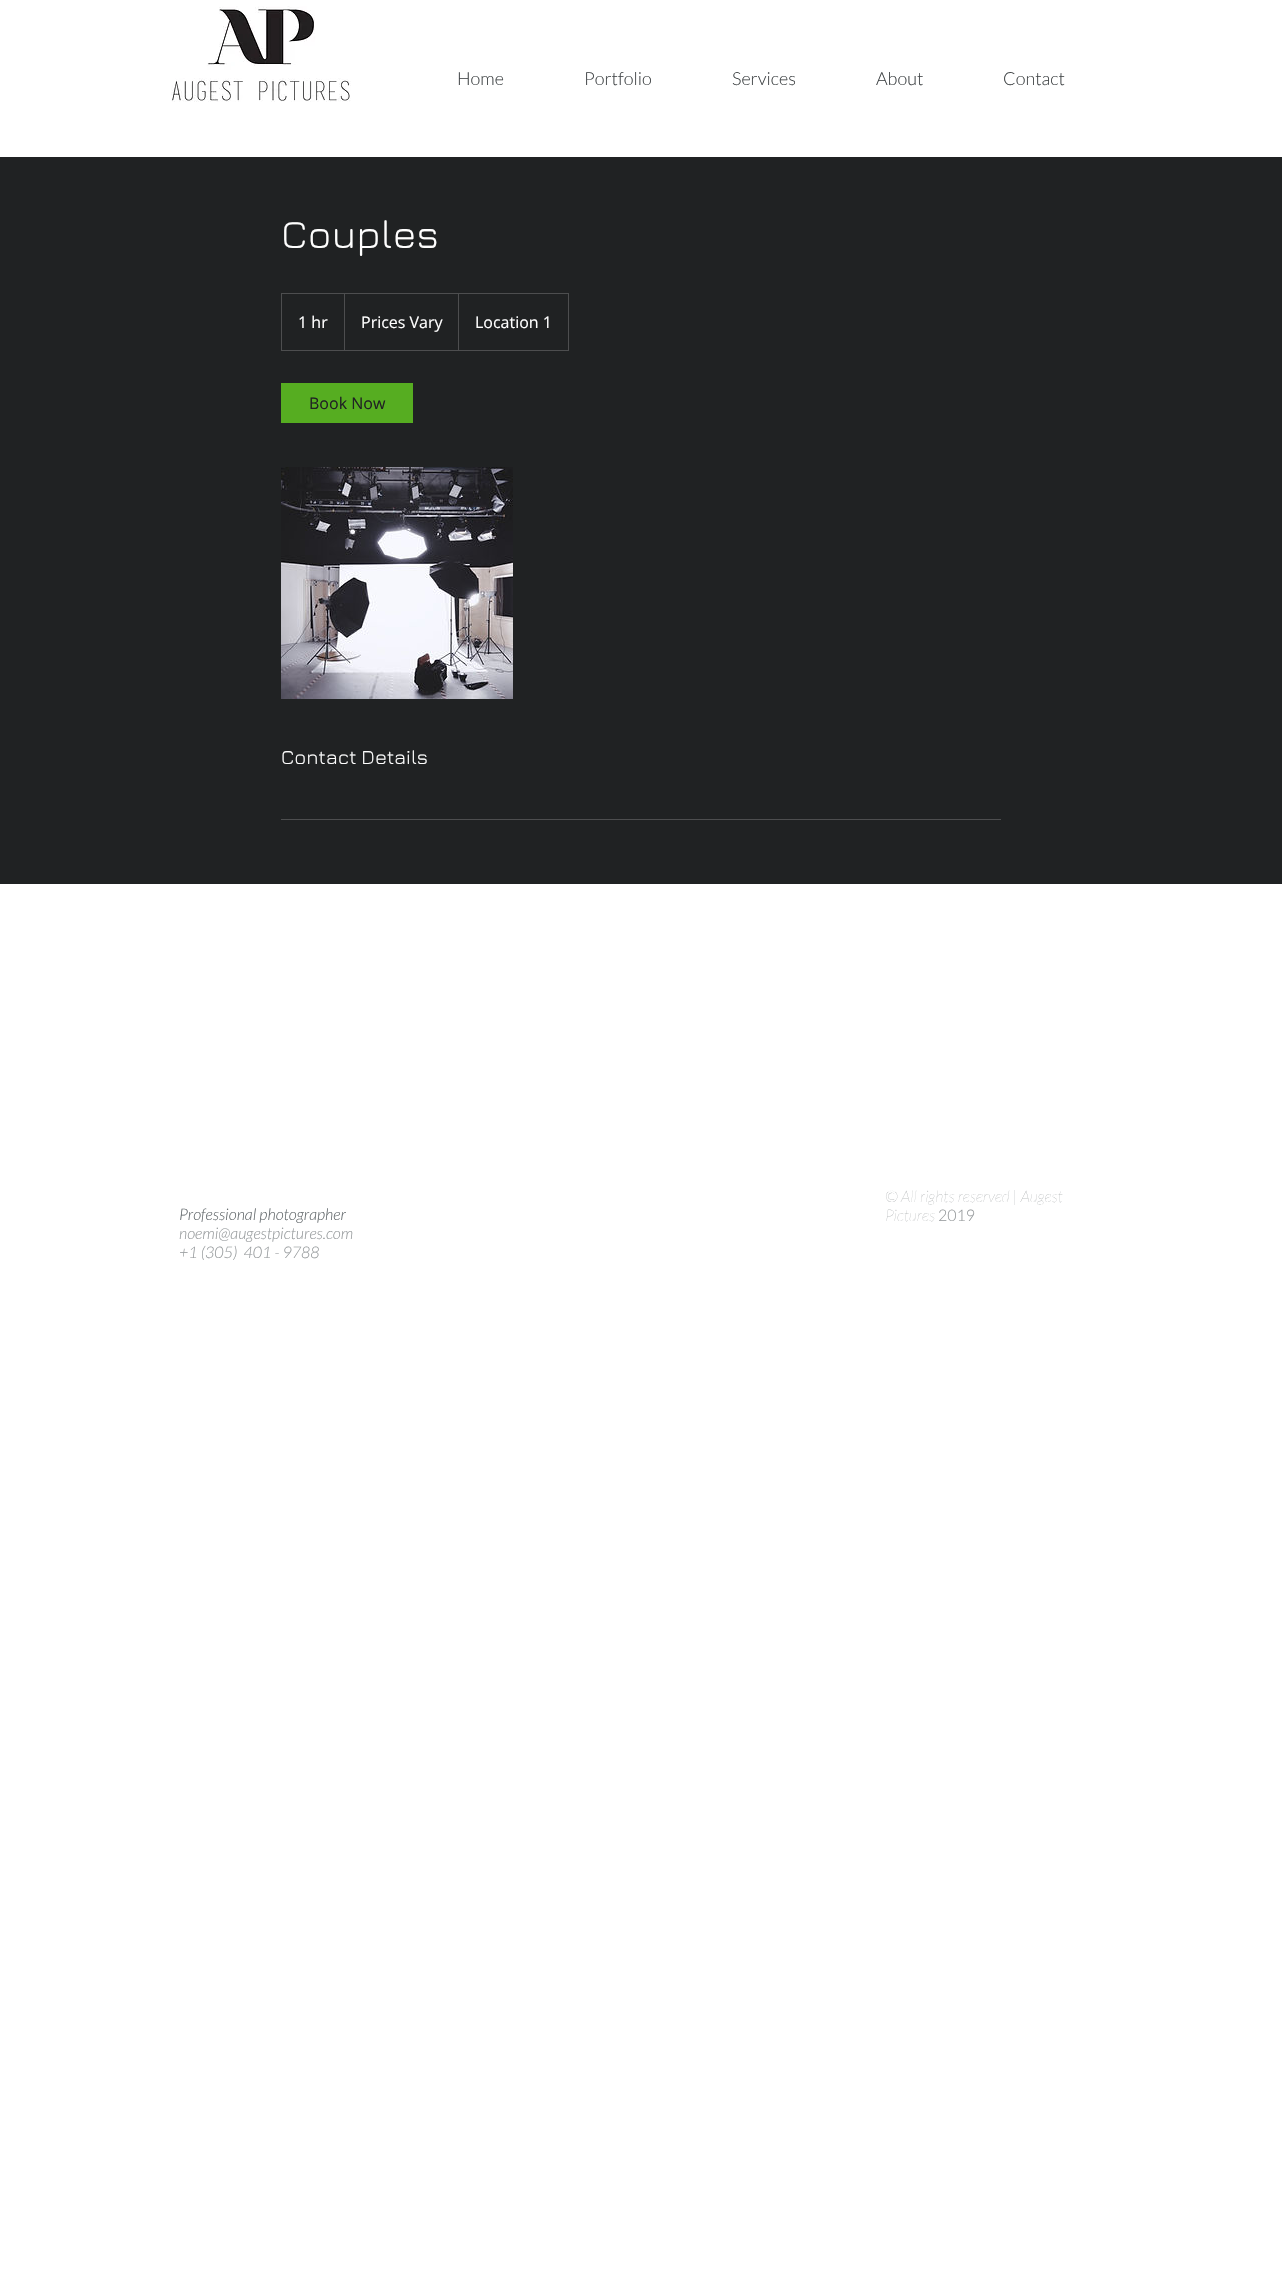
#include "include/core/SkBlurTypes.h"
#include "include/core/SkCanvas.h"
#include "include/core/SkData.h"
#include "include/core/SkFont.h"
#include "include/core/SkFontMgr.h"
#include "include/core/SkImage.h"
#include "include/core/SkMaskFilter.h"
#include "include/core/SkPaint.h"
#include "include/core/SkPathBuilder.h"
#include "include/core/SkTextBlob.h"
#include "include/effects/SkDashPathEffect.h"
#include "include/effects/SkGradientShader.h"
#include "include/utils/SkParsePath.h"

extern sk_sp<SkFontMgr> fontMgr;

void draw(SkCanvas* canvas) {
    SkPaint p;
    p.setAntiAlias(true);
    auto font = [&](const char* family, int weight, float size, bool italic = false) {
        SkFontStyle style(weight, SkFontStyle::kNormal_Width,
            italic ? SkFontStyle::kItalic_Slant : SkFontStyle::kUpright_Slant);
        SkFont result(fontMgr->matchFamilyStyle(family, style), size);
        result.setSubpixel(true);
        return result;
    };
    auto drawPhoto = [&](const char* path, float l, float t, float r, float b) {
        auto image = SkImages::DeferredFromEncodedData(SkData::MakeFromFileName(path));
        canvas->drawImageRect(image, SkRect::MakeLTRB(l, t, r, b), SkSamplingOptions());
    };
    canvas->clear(0xFFFFFFFF);
    drawPhoto("media/1.png", 171, 6, 351, 102);
    auto font1 = font("Lato", 300, 18);
    p.setColor(0xFF414547);
    {
        const struct { const char* s; float x, y; } items[] = {
            {"Home", 457, 85},
            {"Portfolio", 584, 85},
            {"Services", 732, 85},
            {"About", 876, 85},
            {"Contact", 1003, 85},
        };
        for (auto [s, x, y] : items) {
            canvas->drawString(s, x, y, font1, p);
        }
    }
    p.setColor(0xFF202223);
    canvas->drawRect(SkRect::MakeLTRB(0, 157, 1282, 884), p);
    auto font2 = font("Jura", 400, 40);
    p.setColor(0xFFFFFFFF);
    canvas->drawString("Couples", 281, 248, font2, p);
    p.setStyle(SkPaint::kStroke_Style);
    p.setStrokeWidth(1);
    p.setColor(0xFF4D4E4F);
    canvas->drawRect(SkRect::MakeLTRB(281.5f, 293.5f, 568.5f, 350.5f), p);
    auto font3 = font("Open Sans", 400, 16);
    p.setStyle(SkPaint::kFill_Style);
    p.setColor(0xFFFFFFFF);
    canvas->drawString("1 hr", 298, 328, font3, p);
    p.setColor(0xFF4D4E4F);
    canvas->drawPath(SkPathBuilder().moveTo(344, 350).lineTo(344, 293).lineTo(345, 294).lineTo(345, 350).close().detach(), p);
    p.setColor(0xFFFFFFFF);
    canvas->drawString("Prices Vary", 361, 328, font3, p);
    p.setColor(0xFF4D4E4F);
    canvas->drawPath(SkPathBuilder().moveTo(458, 350).lineTo(458, 293).lineTo(459, 294).lineTo(459, 350).close().detach(), p);
    p.setColor(0xFFFFFFFF);
    canvas->drawString("Location 1", 475, 328, font3, p);
    p.setColor(0xFF56AD21);
    canvas->drawRect(SkRect::MakeLTRB(281, 383, 413, 423), p);
    p.setColor(0xFF202223);
    canvas->drawString("Book Now", 309, 409, font3, p);
    drawPhoto("media/2.png", 281, 467, 513, 699);
    auto font4 = font("Jura", 400, 20);
    p.setColor(0xFFFFFFFF);
    canvas->drawString("Contact Details", 281, 764, font4, p);
    p.setColor(0xFF4D4E4F);
    canvas->drawRect(SkRect::MakeLTRB(281, 819, 1001, 820), p);
    auto font5 = font("Lato", 300, 16, true);
    p.setColor(0xFF62686B);
    canvas->drawString("Professional photographer", 179, 1220, font5, p);
    p.setColor(0xFF969A9C);
    canvas->drawString("noemi@augestpictures.com", 179, 1239, font5, p);
    canvas->drawString("+1 (305)  401 - 9788", 179, 1258, font5, p);
    auto font6 = font("Lato", 100, 16, true);
    canvas->drawString("© All rights reserved | Augest", 885, 1202, font6, p);
    canvas->drawString("Pictures", 885, 1221, font6, p);
    auto font7 = font("Lato", 300, 16);
    canvas->drawString("2019", 938, 1221, font7, p);
}
